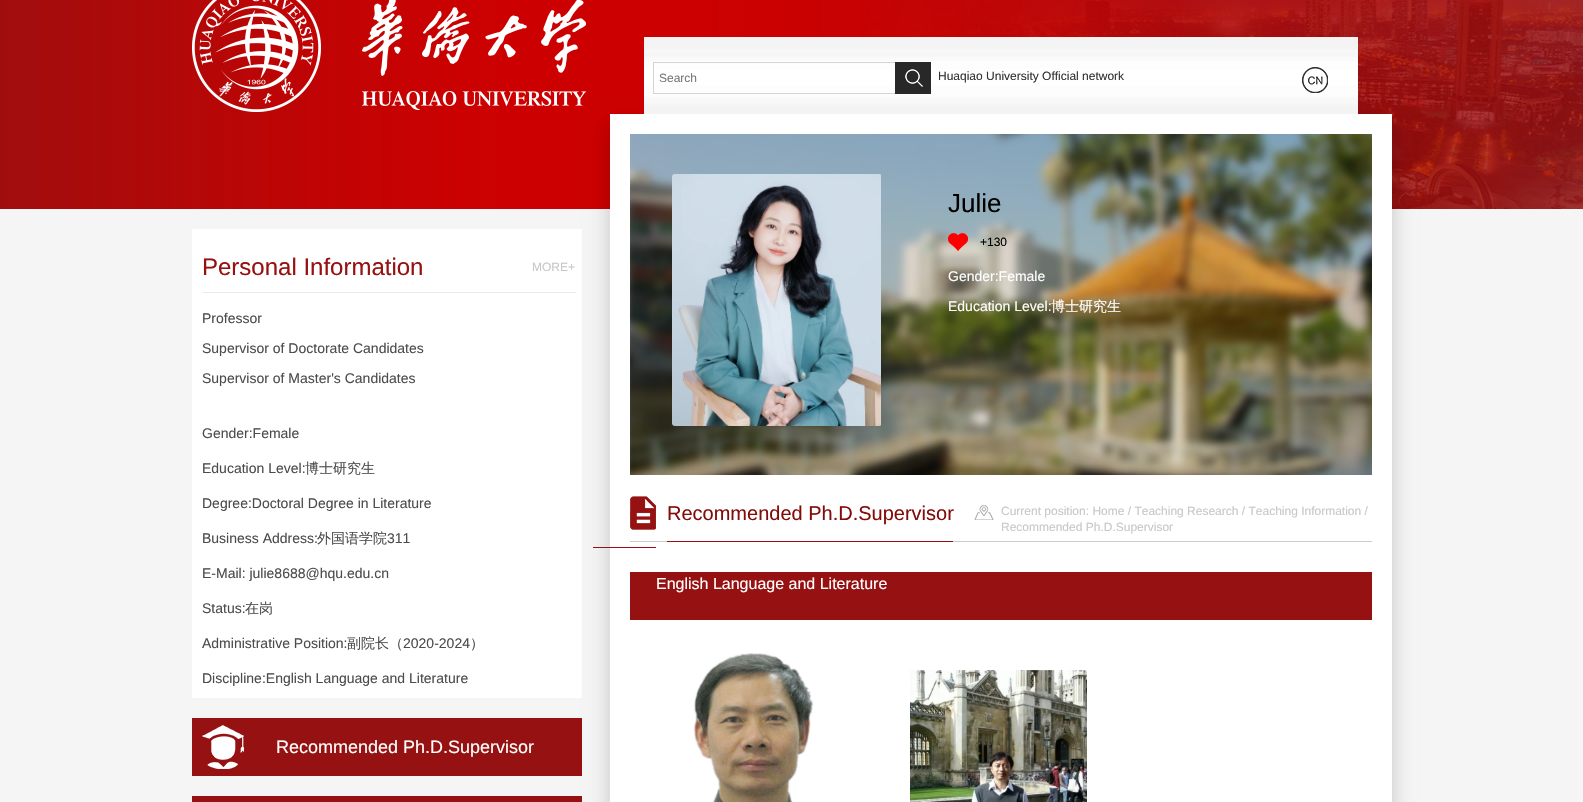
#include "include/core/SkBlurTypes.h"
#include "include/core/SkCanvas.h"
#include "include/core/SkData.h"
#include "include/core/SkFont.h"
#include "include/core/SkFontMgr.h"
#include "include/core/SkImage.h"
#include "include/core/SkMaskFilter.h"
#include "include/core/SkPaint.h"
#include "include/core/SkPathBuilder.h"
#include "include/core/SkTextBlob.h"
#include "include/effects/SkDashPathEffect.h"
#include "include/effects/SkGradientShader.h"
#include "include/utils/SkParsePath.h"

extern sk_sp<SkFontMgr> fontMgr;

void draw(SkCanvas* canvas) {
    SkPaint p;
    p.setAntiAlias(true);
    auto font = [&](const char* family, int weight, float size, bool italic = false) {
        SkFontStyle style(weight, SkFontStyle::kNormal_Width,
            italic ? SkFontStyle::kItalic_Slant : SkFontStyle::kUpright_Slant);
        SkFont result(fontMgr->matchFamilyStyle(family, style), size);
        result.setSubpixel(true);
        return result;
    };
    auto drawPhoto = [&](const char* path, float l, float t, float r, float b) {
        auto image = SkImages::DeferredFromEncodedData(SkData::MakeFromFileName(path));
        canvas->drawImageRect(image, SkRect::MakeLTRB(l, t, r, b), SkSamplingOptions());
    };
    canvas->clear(0xFFF5F5F5);
    drawPhoto("media/1.png", 0, 0, 1583, 209);
    drawPhoto("media/2.png", 192, 0, 586, 112);
    p.setColor(0xFFFFFFFF);
    canvas->drawRect(SkRect::MakeLTRB(192, 229, 582, 698), p);
    p.setColor(0xFFEAEAEA);
    canvas->drawRect(SkRect::MakeLTRB(202, 292, 576, 293), p);
    auto font1 = font("Liberation Sans", 400, 24);
    p.setColor(0xFF961111);
    canvas->drawString("Personal Information", 202, 275, font1, p);
    auto font2 = font("Liberation Sans", 400, 12);
    p.setColor(0xFFC8C8C8);
    canvas->drawString("MORE+", 532, 271, font2, p);
    auto font3 = font("Liberation Sans", 400, 14);
    p.setColor(0xFF4C4C4C);
    {
        const struct { const char* s; float x, y; } items[] = {
            {"Professor", 202, 323},
            {"Supervisor of Doctorate Candidates", 202, 353},
            {"Supervisor of Master's Candidates", 202, 383},
            {"Gender:Female", 202, 438},
            {"Education Level:", 202, 473},
        };
        for (auto [s, x, y] : items) {
            canvas->drawString(s, x, y, font3, p);
        }
    }
    auto font4 = font("WenQuanYi Zen Hei", 500, 14);
    canvas->drawString("博士研究生", 305, 473, font4, p);
    canvas->drawString("Degree:Doctoral Degree in Literature", 202, 508, font3, p);
    canvas->drawString("Business Address:", 202, 543, font3, p);
    canvas->drawString("外国语学院", 317, 543, font4, p);
    {
        const struct { const char* s; float x, y; } items[] = {
            {"311", 387, 543},
            {"E-Mail: julie8688@hqu.edu.cn", 202, 578},
            {"Status:", 202, 613},
        };
        for (auto [s, x, y] : items) {
            canvas->drawString(s, x, y, font3, p);
        }
    }
    canvas->drawString("在岗", 245, 613, font4, p);
    canvas->drawString("Administrative Position:", 202, 648, font3, p);
    canvas->drawString("副院长（", 347, 648, font4, p);
    canvas->drawString("2020-2024", 403, 648, font3, p);
    canvas->drawString("）", 470, 648, font4, p);
    canvas->drawString("Discipline:English Language and Literature", 202, 683, font3, p);
    p.setColor(0xFF961111);
    canvas->drawRect(SkRect::MakeLTRB(192, 718, 582, 776), p);
    drawPhoto("media/3.png", 202, 725, 244, 769);
    auto font5 = font("Liberation Sans", 400, 18);
    p.setColor(0xFFFFFFFF);
    canvas->drawString("Recommended Ph.D.Supervisor", 276, 753, font5, p);
    p.setColor(0xFF961111);
    canvas->drawRect(SkRect::MakeLTRB(192, 796, 582, 802), p);
    p.setColor(0x33000000);
    p.setMaskFilter(SkMaskFilter::MakeBlur(kNormal_SkBlurStyle, 10));
    canvas->drawRect(SkRect::MakeLTRB(610, 124, 1392, 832), p);
    p.setMaskFilter(nullptr);
    drawPhoto("media/4.png", 644, 37, 1358, 114);
    p.setStyle(SkPaint::kStroke_Style);
    p.setStrokeWidth(1);
    p.setColor(0xFFD4D4D4);
    canvas->drawRect(SkRect::MakeLTRB(653.5f, 62.5f, 930.5f, 93.5f), p);
    p.setStyle(SkPaint::kFill_Style);
    p.setColor(0xFF757575);
    canvas->drawString("Search", 659, 82, font2, p);
    p.setColor(0xFF282828);
    canvas->drawRect(SkRect::MakeLTRB(895, 62, 931, 94), p);
    drawPhoto("media/5.png", 905, 69, 923, 87);
    p.setColor(0xFF333333);
    canvas->drawString("Huaqiao University Official network", 938, 80, font2, p);
    drawPhoto("media/6.png", 1302, 67, 1328, 93);
    p.setColor(0xFFFFFFFF);
    canvas->drawRect(SkRect::MakeLTRB(610, 114, 1392, 802), p);
    drawPhoto("media/7.png", 630, 134, 1372, 475);
    drawPhoto("media/8.png", 672, 174, 881, 426);
    auto font6 = font("Liberation Sans", 400, 26);
    p.setColor(0xFF000000);
    canvas->drawString("Julie", 948, 212, font6, p);
    drawPhoto("media/9.png", 948, 233, 968, 251);
    canvas->drawString("+130", 980, 246, font2, p);
    p.setColor(0xFFFFFFFF);
    canvas->drawString("Gender:Female", 948, 281, font3, p);
    canvas->drawString("Education Level:", 948, 311, font3, p);
    canvas->drawString("博士研究生", 1051, 311, font4, p);
    {
        const struct { float l, t, r, b; SkColor color; } items[] = {
            {630, 541, 1372, 542, 0xFFCCCCCC},
            {593, 547, 656, 548, 0xFF971111},
            {667, 541, 953, 542, 0xFF971111},
        };
        for (auto [l, t, r, b, color] : items) {
            p.setColor(color);
            canvas->drawRect(SkRect::MakeLTRB(l, t, r, b), p);
        }
    }
    drawPhoto("media/10.png", 630, 496, 656, 530);
    auto font7 = font("Liberation Sans", 400, 20);
    p.setColor(0xFF830C0B);
    canvas->drawString("Recommended Ph.D.Supervisor", 667, 520, font7, p);
    drawPhoto("media/11.png", 974, 505, 994, 520);
    p.setColor(0xFFC8C8C8);
    canvas->drawString("Current position: Home / Teaching Research / Teaching Information /", 1001, 515, font2, p);
    canvas->drawString("Recommended Ph.D.Supervisor", 1001, 531, font2, p);
    p.setColor(0xFF961111);
    canvas->drawRect(SkRect::MakeLTRB(630, 572, 1372, 620), p);
    auto font8 = font("Liberation Sans", 400, 16);
    p.setColor(0xFFFFFFFF);
    canvas->drawString("English Language and Literature", 656, 589, font8, p);
    drawPhoto("media/12.png", 693, 653, 814, 802);
    drawPhoto("media/13.png", 910, 670, 1087, 802);
}
